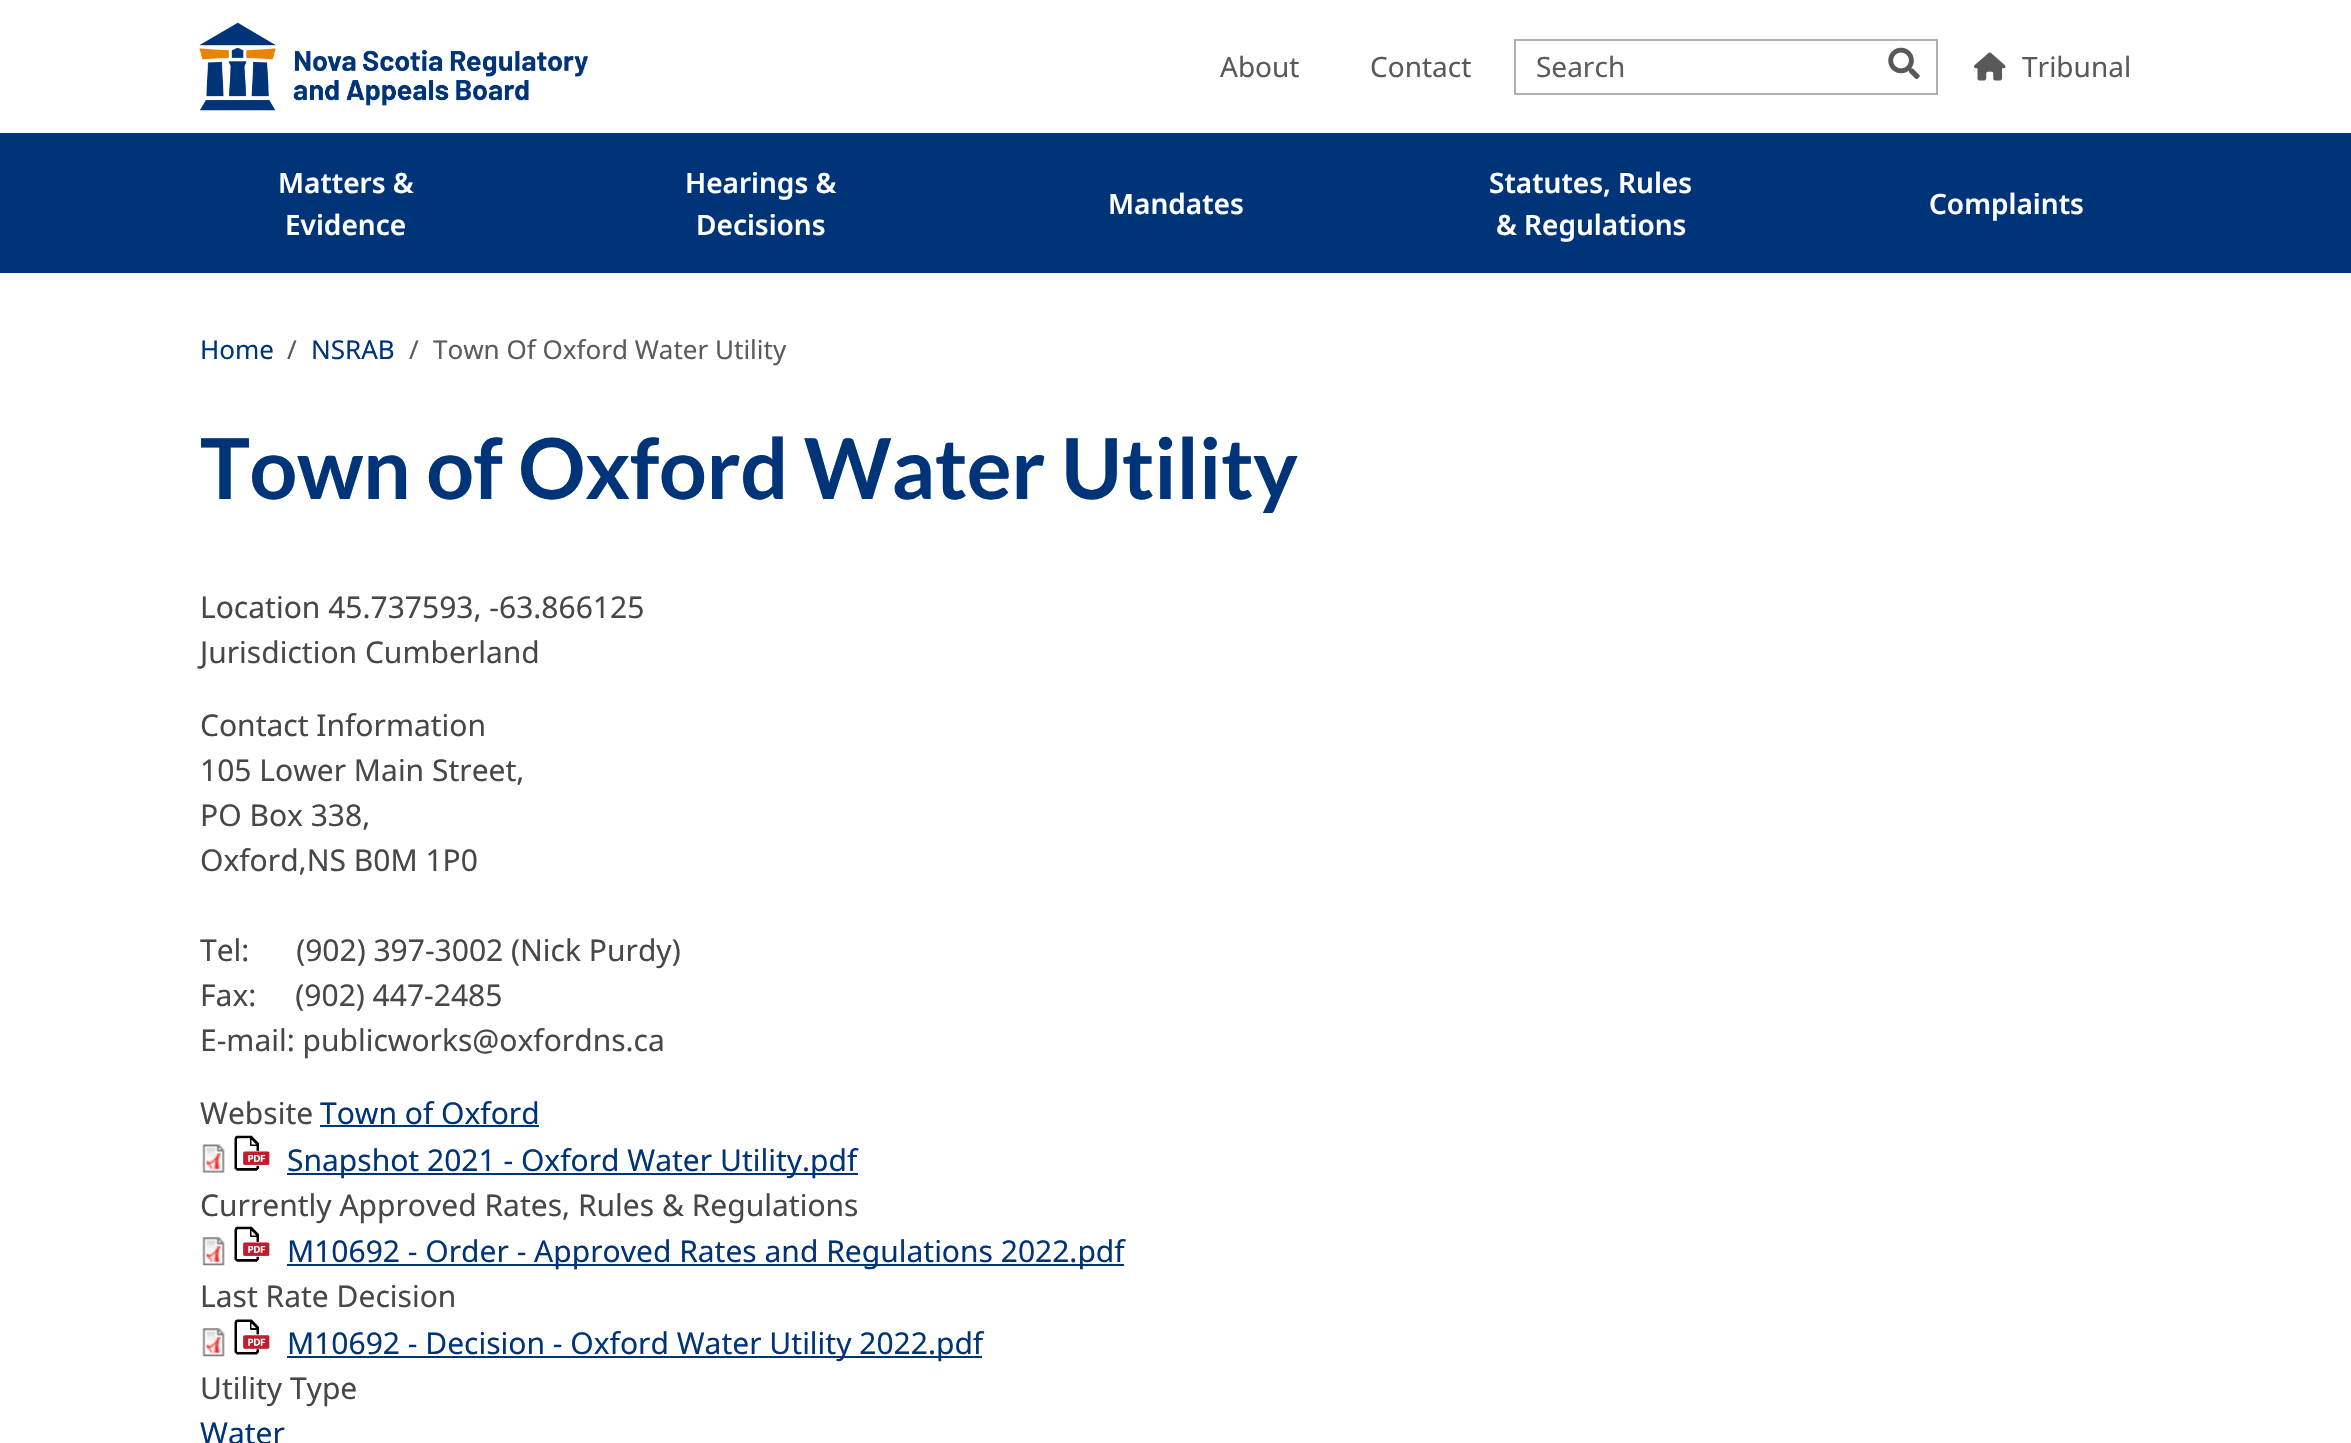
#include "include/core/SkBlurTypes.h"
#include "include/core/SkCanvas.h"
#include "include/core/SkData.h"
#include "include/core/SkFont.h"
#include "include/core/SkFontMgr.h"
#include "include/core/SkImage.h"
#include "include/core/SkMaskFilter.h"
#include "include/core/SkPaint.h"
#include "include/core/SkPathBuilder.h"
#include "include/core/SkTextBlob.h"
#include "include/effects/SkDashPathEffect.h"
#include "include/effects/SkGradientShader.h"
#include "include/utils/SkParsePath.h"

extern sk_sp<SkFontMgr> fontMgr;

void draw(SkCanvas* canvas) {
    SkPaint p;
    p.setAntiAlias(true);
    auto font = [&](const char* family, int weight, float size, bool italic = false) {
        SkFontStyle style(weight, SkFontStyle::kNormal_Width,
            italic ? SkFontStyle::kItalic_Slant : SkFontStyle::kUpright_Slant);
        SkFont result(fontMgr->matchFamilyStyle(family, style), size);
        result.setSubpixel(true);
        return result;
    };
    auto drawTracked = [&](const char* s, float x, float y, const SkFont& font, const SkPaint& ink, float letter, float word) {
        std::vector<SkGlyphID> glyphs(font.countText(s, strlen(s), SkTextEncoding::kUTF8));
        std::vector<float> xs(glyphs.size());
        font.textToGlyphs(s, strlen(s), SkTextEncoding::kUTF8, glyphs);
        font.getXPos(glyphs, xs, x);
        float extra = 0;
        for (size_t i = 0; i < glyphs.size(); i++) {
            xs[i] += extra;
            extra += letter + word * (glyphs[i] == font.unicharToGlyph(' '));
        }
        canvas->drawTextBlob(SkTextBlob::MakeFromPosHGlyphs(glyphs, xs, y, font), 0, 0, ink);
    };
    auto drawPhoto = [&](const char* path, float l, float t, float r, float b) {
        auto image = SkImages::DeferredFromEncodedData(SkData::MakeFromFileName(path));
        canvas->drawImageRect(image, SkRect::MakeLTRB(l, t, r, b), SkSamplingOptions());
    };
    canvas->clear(0xFFFFFFFF);
    drawPhoto("media/1.png", 199, 22, 588, 111);
    auto font1 = font("Noto Sans", 400, 28);
    p.setColor(0xFF595959);
    canvas->drawString("About", 1220, 77, font1, p);
    canvas->drawString("Contact", 1370, 77, font1, p);
    {
        const struct { float l, t, r, b; SkColor color; } items[] = {
            {1514, 39, 1937, 41, 0xFFAEB0B2},
            {1514, 93, 1876, 95, 0xFFAEB0B2},
            {1514, 39, 1516, 95, 0xFFAEB0B2},
        };
        for (auto [l, t, r, b, color] : items) {
            p.setColor(color);
            canvas->drawRect(SkRect::MakeLTRB(l, t, r, b), p);
        }
    }
    p.setColor(0xFF595C5F);
    canvas->drawString("Search", 1536, 77, font1, p);
    p.setColor(0xFFAEB0B2);
    canvas->drawRect(SkRect::MakeLTRB(1936, 39, 1938, 95), p);
    canvas->drawRect(SkRect::MakeLTRB(1874, 93, 1937, 95), p);
    drawPhoto("media/2.png", 1888, 47, 1920, 80);
    drawPhoto("media/3.png", 1974, 52, 2006, 81);
    p.setColor(0xFF595959);
    canvas->drawString("Tribunal", 2022, 77, font1, p);
    p.setColor(0xFF003478);
    canvas->drawRect(SkRect::MakeLTRB(0, 133, 2351, 273), p);
    auto font2 = font("Noto Sans", 600, 28);
    p.setColor(0xFFFFFFFF);
    {
        const struct { const char* s; float x, y; } items[] = {
            {"Matters &", 278, 193},
            {"Evidence", 285, 235},
            {"Hearings &", 685, 193},
            {"Decisions", 696, 235},
            {"Mandates", 1108, 214},
            {"Statutes, Rules", 1489, 193},
            {"& Regulations", 1496, 235},
            {"Complaints", 1929, 214},
        };
        for (auto [s, x, y] : items) {
            canvas->drawString(s, x, y, font2, p);
        }
    }
    auto font3 = font("Noto Sans", 400, 26);
    p.setColor(0xFF003478);
    canvas->drawString("Home", 200, 359, font3, p);
    p.setColor(0xFF595C5F);
    canvas->drawString("/", 287, 359, font3, p);
    p.setColor(0xFF003478);
    canvas->drawString("NSRAB", 311, 359, font3, p);
    p.setColor(0xFF595C5F);
    canvas->drawString("/", 409, 359, font3, p);
    canvas->drawString("Town Of Oxford Water Utility", 433, 359, font3, p);
    auto font4 = font("Lato", 700, 84);
    p.setColor(0xFF003478);
    drawTracked("Town of Oxford Water Utility", 200, 499, font4, p, -0.4f, 0);
    auto font5 = font("Noto Sans", 400, 30);
    p.setColor(0xFF484747);
    {
        const struct { const char* s; float x, y; } items[] = {
            {"Location 45.737593, -63.866125", 200, 618},
            {"Jurisdiction Cumberland", 200, 663},
            {"Contact Information", 200, 736},
            {"105 Lower Main Street,", 200, 781},
            {"PO Box 338,", 200, 826},
            {"Oxford,NS B0M 1P0", 200, 871},
            {"Tel:      (902) 397-3002 (Nick Purdy)", 200, 961},
            {"Fax:     (902) 447-2485", 200, 1006},
            {"E-mail: publicworks@oxfordns.ca", 200, 1051},
            {"Website", 200, 1124},
        };
        for (auto [s, x, y] : items) {
            canvas->drawString(s, x, y, font5, p);
        }
    }
    p.setColor(0xFF003478);
    canvas->drawString("Town of Oxford", 320, 1124, font5, p);
    canvas->drawRect(SkRect::MakeLTRB(320, 1125, 539, 1127), p);
    drawPhoto("media/4.png", 202, 1144, 225, 1173);
    drawPhoto("media/5.png", 234, 1135, 270, 1171);
    canvas->drawRect(SkRect::MakeLTRB(287, 1173, 858, 1175), p);
    canvas->drawString("Snapshot 2021 - Oxford Water Utility.pdf", 287, 1171, font5, p);
    p.setColor(0xFF484747);
    canvas->drawString("Currently Approved Rates, Rules & Regulations", 200, 1216, font5, p);
    drawPhoto("media/6.png", 202, 1237, 225, 1266);
    drawPhoto("media/5.png", 234, 1226, 270, 1262);
    p.setColor(0xFF003478);
    canvas->drawRect(SkRect::MakeLTRB(287, 1264, 1124, 1266), p);
    canvas->drawString("M10692 - Order - Approved Rates and Regulations 2022.pdf", 287, 1262, font5, p);
    p.setColor(0xFF484747);
    canvas->drawString("Last Rate Decision", 200, 1307, font5, p);
    drawPhoto("media/6.png", 202, 1328, 225, 1357);
    drawPhoto("media/7.png", 234, 1319, 270, 1355);
    p.setColor(0xFF003478);
    canvas->drawRect(SkRect::MakeLTRB(287, 1356, 982, 1358), p);
    canvas->drawString("M10692 - Decision - Oxford Water Utility 2022.pdf", 287, 1354, font5, p);
    p.setColor(0xFF484747);
    canvas->drawString("Utility Type", 200, 1399, font5, p);
    p.setColor(0xFF003478);
    canvas->drawString("Water", 200, 1444, font5, p);
}
